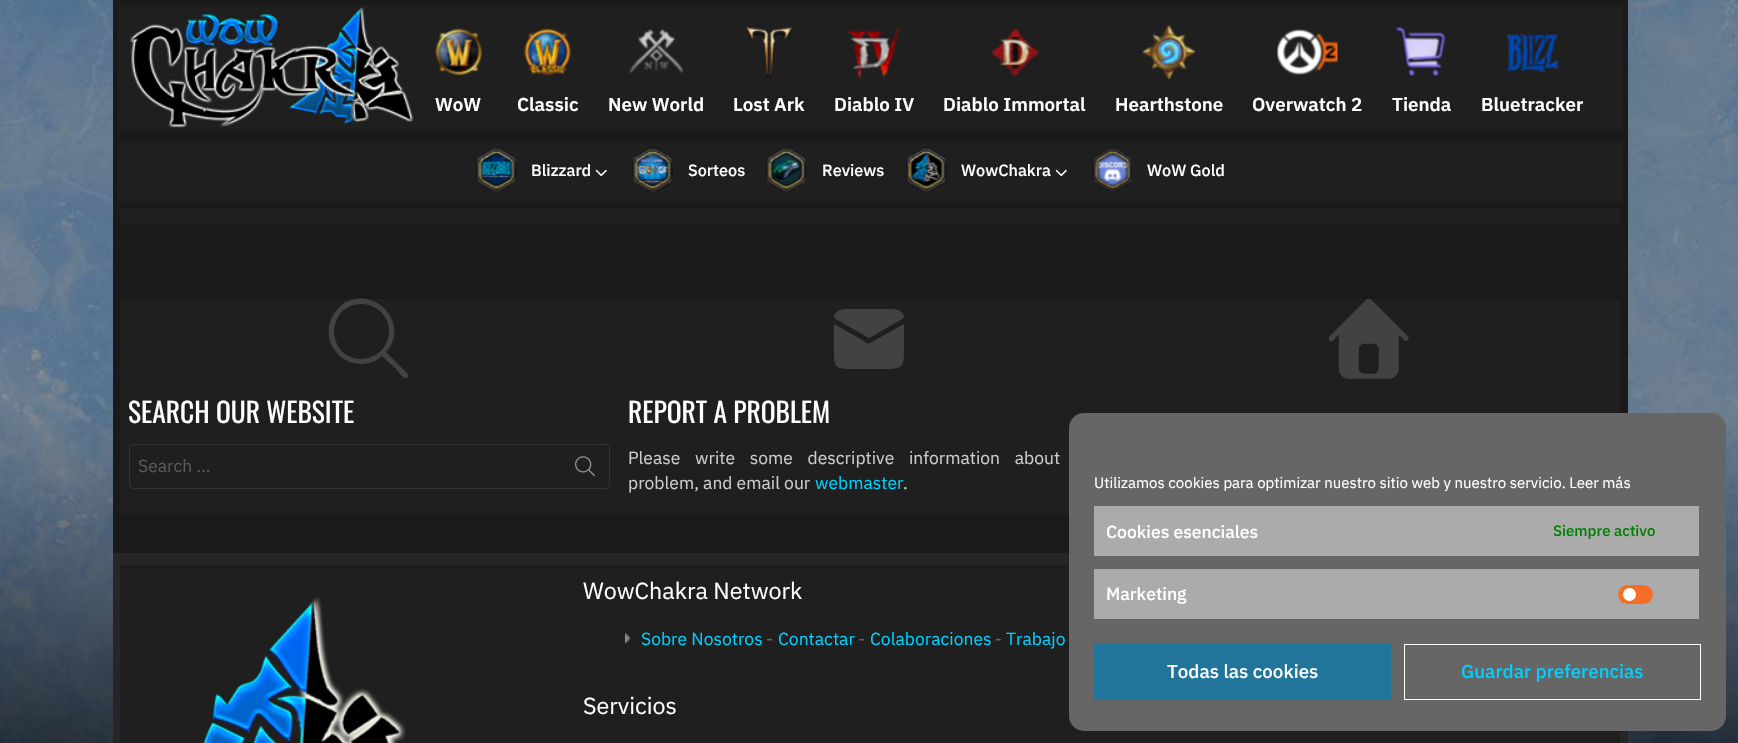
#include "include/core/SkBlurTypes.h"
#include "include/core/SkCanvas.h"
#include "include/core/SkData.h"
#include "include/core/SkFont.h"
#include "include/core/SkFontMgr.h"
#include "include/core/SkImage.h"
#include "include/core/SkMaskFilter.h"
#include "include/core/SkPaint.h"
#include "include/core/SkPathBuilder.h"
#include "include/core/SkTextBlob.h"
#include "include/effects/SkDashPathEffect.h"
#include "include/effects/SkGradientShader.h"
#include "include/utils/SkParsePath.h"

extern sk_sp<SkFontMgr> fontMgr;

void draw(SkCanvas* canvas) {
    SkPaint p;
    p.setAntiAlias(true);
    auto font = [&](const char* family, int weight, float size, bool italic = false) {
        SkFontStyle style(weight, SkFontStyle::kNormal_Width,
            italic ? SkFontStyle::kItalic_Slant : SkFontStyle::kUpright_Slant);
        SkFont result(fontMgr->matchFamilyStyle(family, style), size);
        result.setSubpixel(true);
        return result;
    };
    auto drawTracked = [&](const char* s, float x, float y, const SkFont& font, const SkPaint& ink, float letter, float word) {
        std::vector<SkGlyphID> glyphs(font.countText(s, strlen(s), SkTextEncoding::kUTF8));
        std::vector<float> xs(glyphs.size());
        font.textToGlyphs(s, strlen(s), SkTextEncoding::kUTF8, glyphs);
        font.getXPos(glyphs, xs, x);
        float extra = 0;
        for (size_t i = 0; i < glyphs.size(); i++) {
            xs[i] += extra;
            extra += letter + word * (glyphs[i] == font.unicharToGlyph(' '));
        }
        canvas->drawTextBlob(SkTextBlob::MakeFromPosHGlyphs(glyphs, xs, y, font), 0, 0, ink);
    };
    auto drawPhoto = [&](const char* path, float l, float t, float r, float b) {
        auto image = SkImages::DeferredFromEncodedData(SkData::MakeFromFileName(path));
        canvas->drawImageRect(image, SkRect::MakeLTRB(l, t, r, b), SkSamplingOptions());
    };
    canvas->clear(0xFFFFFFFF);
    drawPhoto("media/1.png", 0, 0, 1738, 743);
    p.setColor(0xFF1F1F1F);
    canvas->drawRect(SkRect::MakeLTRB(115.5f, 2.5f, 1625.5f, 133.5f), p);
    p.setStyle(SkPaint::kStroke_Style);
    p.setStrokeWidth(5);
    p.setColor(0xFF1A1A1A);
    canvas->drawRect(SkRect::MakeLTRB(115.5f, 2.5f, 1625.5f, 133.5f), p);
    drawPhoto("media/2.png", 129, 7, 414, 128);
    drawPhoto("media/3.png", 435, 28, 483, 76);
    auto font1 = font("IBM Plex Sans", 600, 18.75f);
    p.setStyle(SkPaint::kFill_Style);
    p.setColor(0xFFFFFFFF);
    canvas->drawString("WoW", 435, 111, font1, p);
    drawPhoto("media/4.png", 524, 28, 571, 75);
    canvas->drawString("Classic", 517, 111, font1, p);
    drawPhoto("media/5.png", 629, 28, 684, 74);
    canvas->drawString("New World", 608, 111, font1, p);
    drawPhoto("media/6.png", 746, 26, 792, 78);
    canvas->drawString("Lost Ark", 733, 111, font1, p);
    drawPhoto("media/7.png", 846, 25, 902, 79);
    canvas->drawString("Diablo IV", 834, 111, font1, p);
    drawPhoto("media/8.png", 990, 27, 1040, 77);
    canvas->drawString("Diablo Immortal", 943, 111, font1, p);
    drawPhoto("media/9.png", 1142, 24, 1196, 80);
    canvas->drawString("Hearthstone", 1115, 111, font1, p);
    drawPhoto("media/10.png", 1277, 29, 1338, 75);
    canvas->drawString("Overwatch 2", 1252, 111, font1, p);
    drawPhoto("media/11.png", 1395, 26, 1446, 77);
    canvas->drawString("Tienda", 1392, 111, font1, p);
    drawPhoto("media/12.png", 1506, 33, 1559, 73);
    canvas->drawString("Bluetracker", 1481, 111, font1, p);
    p.setColor(0xFF1F1F1F);
    canvas->drawRect(SkRect::MakeLTRB(115.5f, 138.5f, 1625.5f, 205.5f), p);
    p.setStyle(SkPaint::kStroke_Style);
    p.setColor(0xFF1A1A1A);
    canvas->drawRect(SkRect::MakeLTRB(115.5f, 138.5f, 1625.5f, 205.5f), p);
    drawPhoto("media/13.png", 476, 147, 517, 192);
    auto font2 = font("IBM Plex Sans", 500, 16.25f);
    p.setStyle(SkPaint::kFill_Style);
    p.setColor(0xFFFFFFFF);
    canvas->drawString("Blizzard", 531, 176, font2, p);
    drawPhoto("media/14.png", 595, 169, 607, 177);
    drawPhoto("media/15.png", 632, 147, 674, 192);
    canvas->drawString("Sorteos", 688, 176, font2, p);
    drawPhoto("media/16.png", 766, 147, 807, 192);
    canvas->drawString("Reviews", 822, 176, font2, p);
    drawPhoto("media/17.png", 906, 147, 947, 192);
    canvas->drawString("WowChakra", 961, 176, font2, p);
    drawPhoto("media/14.png", 1055, 169, 1067, 177);
    drawPhoto("media/18.png", 1092, 147, 1134, 192);
    canvas->drawString("WoW Gold", 1147, 176, font2, p);
    {
        const struct { float l, t, r, b; SkColor color; } items[] = {
            {113, 208, 1628, 553, 0xFF1A1A1A},
            {120, 208, 1620, 224, 0xFF1F1F1F},
            {120, 299, 1620, 515, 0xFF1F1F1F},
        };
        for (auto [l, t, r, b, color] : items) {
            p.setColor(color);
            canvas->drawRect(SkRect::MakeLTRB(l, t, r, b), p);
        }
    }
    drawPhoto("media/19.png", 1329, 299, 1409, 379);
    p.setColor(0xFF424242);
    canvas->drawPath(SkPathBuilder().moveTo(408, 374).lineTo(386, 352).cubicTo(411, 325, 376, 285, 344, 303).cubicTo(338, 308, 333, 314, 330, 322).cubicTo(327, 332, 329, 344, 336, 352).cubicTo(347, 366, 369, 368, 382, 356).lineTo(397, 370).cubicTo(398, 372, 404, 379, 406, 378).cubicTo(408, 378, 409, 376, 408, 374).close().moveTo(334, 331).cubicTo(334, 325, 336, 320, 339, 315).cubicTo(355, 294, 389, 305, 389, 331).cubicTo(389, 358, 355, 369, 339, 348).cubicTo(336, 343, 334, 337, 334, 331).close().detach(), p);
    auto font3 = font("Oswald", 400, 27.5f);
    p.setColor(0xFFFFFFFF);
    canvas->drawString("SEARCH OUR WEBSITE", 128, 423, font3, p);
    p.setStyle(SkPaint::kStroke_Style);
    p.setStrokeWidth(1);
    p.setColor(0xFF333333);
    canvas->drawRoundRect(SkRect::MakeLTRB(129.5f, 444.5f, 609.5f, 488.5f), 4.5f, 4.5f, p);
    auto font4 = font("IBM Plex Sans", 400, 17.5f);
    p.setStyle(SkPaint::kFill_Style);
    p.setColor(0xFF585858);
    canvas->drawString("Search …", 138, 472, font4, p);
    drawPhoto("media/20.png", 575, 456, 595, 477);
    p.setColor(0xFF424242);
    canvas->drawPath(SkPathBuilder().moveTo(869, 338).lineTo(904, 318).cubicTo(903, 308, 893, 309, 885, 309).lineTo(852, 309).cubicTo(845, 309, 835, 308, 834, 318).close().moveTo(870, 343).cubicTo(868, 345, 862, 340, 862, 340).lineTo(834, 324).lineTo(834, 353).cubicTo(834, 368, 837, 369, 852, 369).lineTo(885, 369).cubicTo(900, 369, 904, 368, 904, 353).lineTo(904, 324).close().detach(), p);
    p.setColor(0xFFFFFFFF);
    canvas->drawString("REPORT A PROBLEM", 628, 423, font3, p);
    p.setColor(0xFFCCCCCC);
    drawTracked("Please write some descriptive information about", 628, 464, font4, p, 0, 10.5f);
    canvas->drawString("problem, and email our", 628, 489, font4, p);
    p.setColor(0xFF00D0FF);
    canvas->drawString("webmaster", 815, 489, font4, p);
    p.setColor(0xFFCCCCCC);
    canvas->drawString(".", 903, 489, font4, p);
    p.setColor(0xFF262626);
    canvas->drawRect(SkRect::MakeLTRB(113, 553, 1628, 743), p);
    p.setColor(0xFF1F1F1F);
    canvas->drawRect(SkRect::MakeLTRB(120, 565, 1620, 743), p);
    drawPhoto("media/21.png", 203, 597, 406, 743);
    auto font5 = font("IBM Plex Sans", 400, 23.25f);
    p.setColor(0xFFFFFFFF);
    canvas->drawString("WowChakra Network", 583, 599, font5, p);
    drawPhoto("media/22.png", 625, 633, 630, 644);
    p.setColor(0xFF00D0FF);
    canvas->drawString("Sobre Nosotros", 641, 645, font4, p);
    p.setColor(0xFF666666);
    canvas->drawString("-", 766, 645, font4, p);
    p.setColor(0xFF00D0FF);
    canvas->drawString("Contactar", 778, 645, font4, p);
    p.setColor(0xFF666666);
    canvas->drawString("-", 858, 645, font4, p);
    p.setColor(0xFF00D0FF);
    canvas->drawString("Colaboraciones", 870, 645, font4, p);
    p.setColor(0xFF666666);
    canvas->drawString("-", 995, 645, font4, p);
    p.setColor(0xFF00D0FF);
    canvas->drawString("Trabajo", 1006, 645, font4, p);
    p.setColor(0xFFFFFFFF);
    canvas->drawString("Servicios", 583, 714, font5, p);
    p.setColor(0xFF666666);
    canvas->drawRoundRect(SkRect::MakeLTRB(1069, 413, 1726, 731), 15, 15, p);
    auto font6 = font("IBM Plex Sans", 400, 15);
    p.setColor(0xFFFFFFFF);
    canvas->drawString("Utilizamos cookies para optimizar nuestro sitio web y nuestro servicio. Leer más", 1094, 488, font6, p);
    p.setColor(0xFFABABAB);
    canvas->drawRect(SkRect::MakeLTRB(1094, 506, 1699, 556), p);
    auto font7 = font("IBM Plex Sans", 500, 17.5f);
    p.setColor(0xFFFFFFFF);
    canvas->drawString("Cookies esenciales", 1106, 538, font7, p);
    auto font8 = font("IBM Plex Sans", 500, 15);
    p.setColor(0xFF008000);
    canvas->drawString("Siempre activo", 1553, 536, font8, p);
    p.setColor(0xFFABABAB);
    canvas->drawRect(SkRect::MakeLTRB(1094, 569, 1699, 619), p);
    p.setColor(0xFFFFFFFF);
    canvas->drawString("Marketing", 1106, 600, font7, p);
    p.setColor(0xFFF56E28);
    canvas->drawRoundRect(SkRect::MakeLTRB(1618, 585, 1653, 604), 9.5f, 9.5f, p);
    p.setColor(0xFFFFFFFF);
    canvas->drawCircle(1629.5f, 594.5f, 6.5f, p);
    p.setColor(0xFF21759B);
    canvas->drawRect(SkRect::MakeLTRB(1094, 644, 1391, 700), p);
    auto font9 = font("IBM Plex Sans", 500, 18.75f);
    p.setColor(0xFFFFFFFF);
    canvas->drawString("Todas las cookies", 1167, 678, font9, p);
    p.setStyle(SkPaint::kStroke_Style);
    canvas->drawRect(SkRect::MakeLTRB(1404.5f, 644.5f, 1700.5f, 699.5f), p);
    p.setStyle(SkPaint::kFill_Style);
    p.setColor(0xFF00D0FF);
    canvas->drawString("Guardar preferencias", 1461, 678, font9, p);
}
